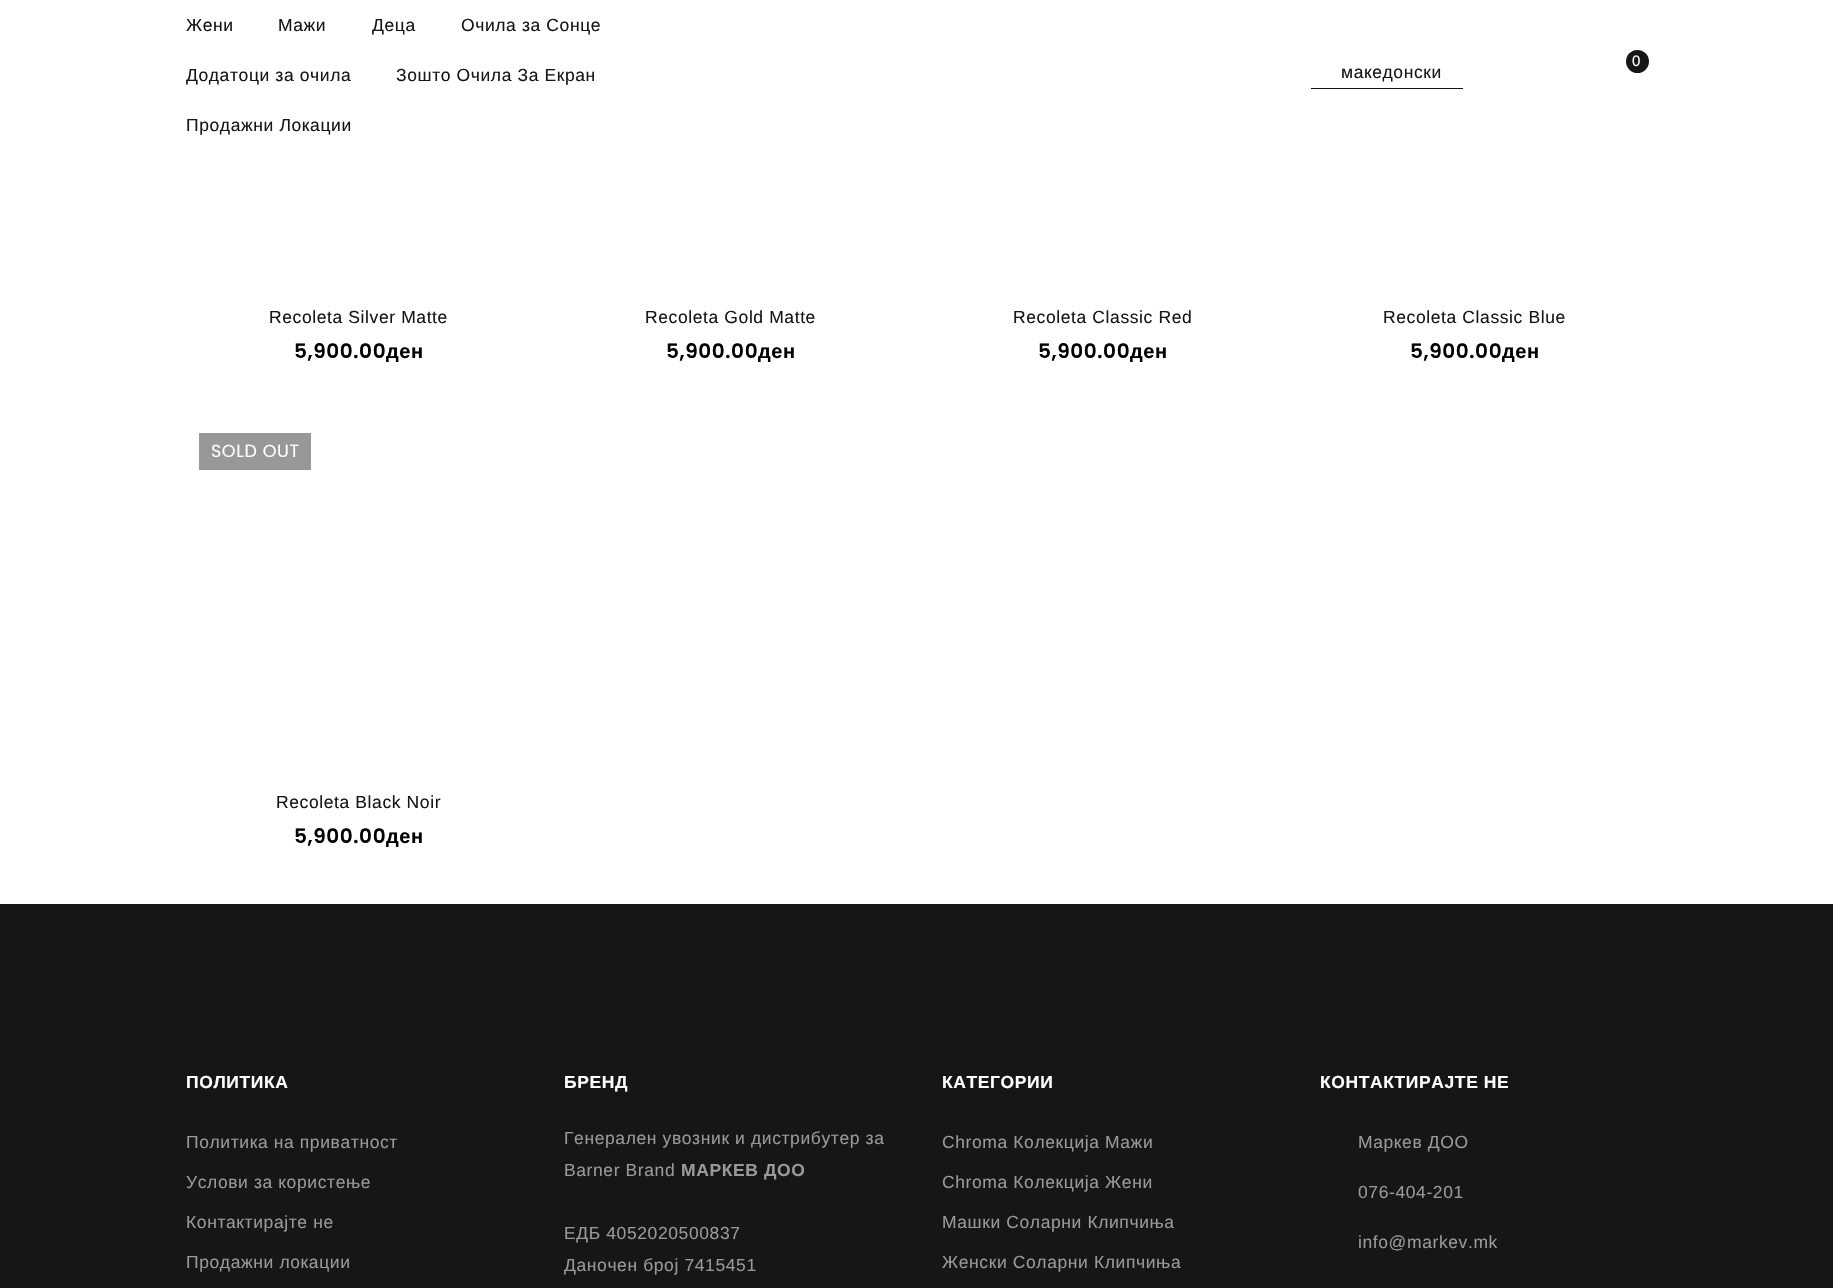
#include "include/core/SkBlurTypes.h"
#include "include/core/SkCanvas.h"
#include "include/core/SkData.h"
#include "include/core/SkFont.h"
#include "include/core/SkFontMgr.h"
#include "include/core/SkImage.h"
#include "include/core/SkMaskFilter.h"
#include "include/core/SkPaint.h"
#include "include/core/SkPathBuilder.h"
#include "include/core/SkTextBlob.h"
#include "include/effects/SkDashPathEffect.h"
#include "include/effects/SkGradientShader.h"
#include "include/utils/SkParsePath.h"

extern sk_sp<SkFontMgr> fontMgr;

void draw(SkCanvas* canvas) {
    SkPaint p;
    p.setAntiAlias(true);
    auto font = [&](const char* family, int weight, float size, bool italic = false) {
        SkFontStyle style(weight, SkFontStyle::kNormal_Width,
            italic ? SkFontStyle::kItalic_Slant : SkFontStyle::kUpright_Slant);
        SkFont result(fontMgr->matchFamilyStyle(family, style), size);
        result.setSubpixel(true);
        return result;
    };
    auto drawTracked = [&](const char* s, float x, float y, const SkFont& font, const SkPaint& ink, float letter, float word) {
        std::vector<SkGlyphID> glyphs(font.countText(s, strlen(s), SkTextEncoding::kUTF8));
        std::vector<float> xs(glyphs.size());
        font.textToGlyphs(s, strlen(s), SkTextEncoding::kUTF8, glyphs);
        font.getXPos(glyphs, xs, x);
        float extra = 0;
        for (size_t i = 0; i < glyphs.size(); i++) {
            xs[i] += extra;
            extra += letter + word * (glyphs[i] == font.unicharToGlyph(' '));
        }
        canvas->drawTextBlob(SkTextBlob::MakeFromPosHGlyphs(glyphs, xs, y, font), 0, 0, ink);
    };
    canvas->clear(0xFFFFFFFF);
    auto font1 = font("Liberation Sans", 400, 17.5f);
    p.setColor(0xFF161616);
    {
        const struct { const char* s; float x, y; } items[] = {
            {"Жени", 186, 31},
            {"Мажи", 278, 31},
            {"Деца", 372, 31},
            {"Очила за Сонце", 461, 31},
            {"Додатоци за очила", 186, 81},
            {"Зошто Очила За Екран", 396, 81},
            {"Продажни Локации", 186, 131},
        };
        for (auto [s, x, y] : items) {
            drawTracked(s, x, y, font1, p, 0.6f, 0);
        }
    }
    canvas->drawCircle(1637.5f, 61.5f, 11.5f, p);
    auto font2 = font("Liberation Sans", 400, 15);
    p.setColor(0xFFFFFFFF);
    drawTracked("0", 1632, 66, font2, p, 0.6f, 0);
    p.setColor(0xFF161616);
    drawTracked("македонски", 1341, 78, font1, p, 0.6f, 0);
    canvas->drawRect(SkRect::MakeLTRB(1311, 88, 1463, 89), p);
    drawTracked("Recoleta Silver Matte", 269, 323, font1, p, 0.6f, 0);
    auto font3 = font("Poppins", 600, 20);
    p.setColor(0xFF000000);
    drawTracked("5,900.00", 294, 358, font3, p, 0.6f, 0);
    auto font4 = font("Liberation Sans", 700, 20);
    drawTracked("ден", 386, 358, font4, p, 0.6f, 0);
    p.setColor(0xFF161616);
    drawTracked("Recoleta Gold Matte", 645, 323, font1, p, 0.6f, 0);
    p.setColor(0xFF000000);
    drawTracked("5,900.00", 666, 358, font3, p, 0.6f, 0);
    drawTracked("ден", 758, 358, font4, p, 0.6f, 0);
    p.setColor(0xFF161616);
    drawTracked("Recoleta Classic Red", 1013, 323, font1, p, 0.6f, 0);
    p.setColor(0xFF000000);
    drawTracked("5,900.00", 1038, 358, font3, p, 0.6f, 0);
    drawTracked("ден", 1130, 358, font4, p, 0.6f, 0);
    p.setColor(0xFF161616);
    drawTracked("Recoleta Classic Blue", 1383, 323, font1, p, 0.6f, 0);
    p.setColor(0xFF000000);
    drawTracked("5,900.00", 1410, 358, font3, p, 0.6f, 0);
    drawTracked("ден", 1502, 358, font4, p, 0.6f, 0);
    p.setColor(0xFF989898);
    canvas->drawRect(SkRect::MakeLTRB(199, 433, 311, 470), p);
    auto font5 = font("Poppins", 400, 17.5f);
    p.setColor(0xFFFFFFFF);
    drawTracked("SOLD OUT", 211, 457, font5, p, 0.6f, 0);
    p.setColor(0xFF161616);
    drawTracked("Recoleta Black Noir", 276, 808, font1, p, 0.6f, 0);
    p.setColor(0xFF000000);
    drawTracked("5,900.00", 294, 843, font3, p, 0.6f, 0);
    drawTracked("ден", 386, 843, font4, p, 0.6f, 0);
    p.setColor(0xFF161616);
    canvas->drawRect(SkRect::MakeLTRB(0, 904, 1833, 1288), p);
    auto font6 = font("Liberation Sans", 700, 17.5f);
    p.setColor(0xFFFFFFFF);
    drawTracked("ПОЛИТИКА", 186, 1088, font6, p, 0.6f, 0);
    p.setColor(0xFF999999);
    {
        const struct { const char* s; float x, y; } items[] = {
            {"Политика на приватност", 186, 1148},
            {"Услови за користење", 186, 1188},
            {"Контактирајте не", 186, 1228},
            {"Продажни локации", 186, 1268},
        };
        for (auto [s, x, y] : items) {
            drawTracked(s, x, y, font1, p, 0.6f, 0);
        }
    }
    p.setColor(0xFFFFFFFF);
    drawTracked("БРЕНД", 564, 1088, font6, p, 0.6f, 0);
    p.setColor(0xFF999999);
    drawTracked("Генерален увозник и дистрибутер за", 564, 1144, font1, p, 0.6f, 0);
    drawTracked("Barner Brand", 564, 1176, font1, p, 0.6f, 0);
    drawTracked("МАРКЕВ ДОО", 681, 1176, font6, p, 0.6f, 0);
    drawTracked("ЕДБ 4052020500837", 564, 1239, font1, p, 0.6f, 0);
    drawTracked("Даночен број 7415451", 564, 1271, font1, p, 0.6f, 0);
    p.setColor(0xFFFFFFFF);
    drawTracked("КАТЕГОРИИ", 942, 1088, font6, p, 0.6f, 0);
    p.setColor(0xFF999999);
    {
        const struct { const char* s; float x, y; } items[] = {
            {"Chroma Колекција Мажи", 942, 1148},
            {"Chroma Колекција Жени", 942, 1188},
            {"Машки Соларни Клипчиња", 942, 1228},
            {"Женски Соларни Клипчиња", 942, 1268},
        };
        for (auto [s, x, y] : items) {
            drawTracked(s, x, y, font1, p, 0.6f, 0);
        }
    }
    p.setColor(0xFFFFFFFF);
    drawTracked("КОНТАКТИРАЈТЕ НЕ", 1320, 1088, font6, p, 0.6f, 0);
    p.setColor(0xFF999999);
    {
        const struct { const char* s; float x, y; } items[] = {
            {"Маркев ДОО", 1358, 1148},
            {"076-404-201", 1358, 1198},
            {"info@markev.mk", 1358, 1248},
        };
        for (auto [s, x, y] : items) {
            drawTracked(s, x, y, font1, p, 0.6f, 0);
        }
    }
}
